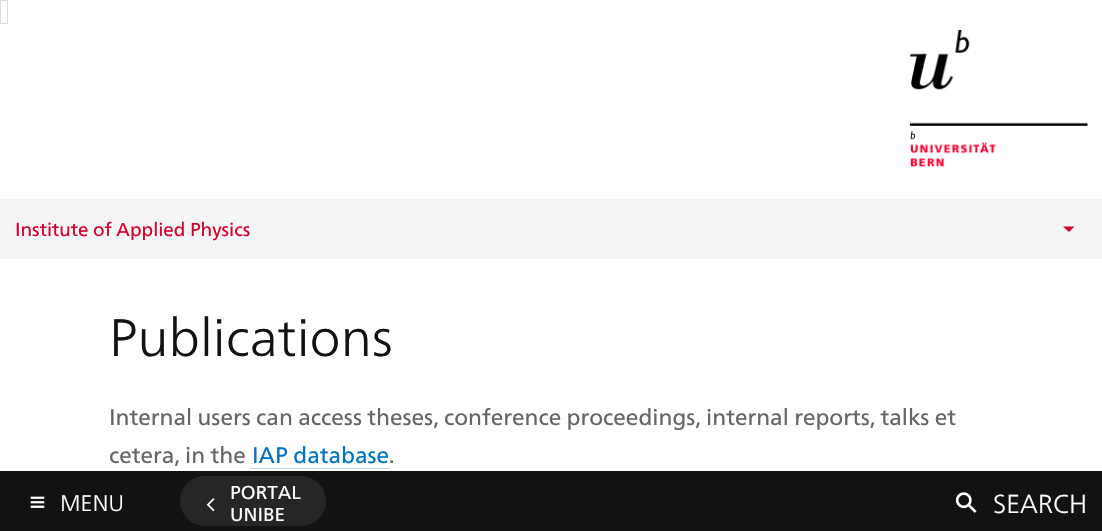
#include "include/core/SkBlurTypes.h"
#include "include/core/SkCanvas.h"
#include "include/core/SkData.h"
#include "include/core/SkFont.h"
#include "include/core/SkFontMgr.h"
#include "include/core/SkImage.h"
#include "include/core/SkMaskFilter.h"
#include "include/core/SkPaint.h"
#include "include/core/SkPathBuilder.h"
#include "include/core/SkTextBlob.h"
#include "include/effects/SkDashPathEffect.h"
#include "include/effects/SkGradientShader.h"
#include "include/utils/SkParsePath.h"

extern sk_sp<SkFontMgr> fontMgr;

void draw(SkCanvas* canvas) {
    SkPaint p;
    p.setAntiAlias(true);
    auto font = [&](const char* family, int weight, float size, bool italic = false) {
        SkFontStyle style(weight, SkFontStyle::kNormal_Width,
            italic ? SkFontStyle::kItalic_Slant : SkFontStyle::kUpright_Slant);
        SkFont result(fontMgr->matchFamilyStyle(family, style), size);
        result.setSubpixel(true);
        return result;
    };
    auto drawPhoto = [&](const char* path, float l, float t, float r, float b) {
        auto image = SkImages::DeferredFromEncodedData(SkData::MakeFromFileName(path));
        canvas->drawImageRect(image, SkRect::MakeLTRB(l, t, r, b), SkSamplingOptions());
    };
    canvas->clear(0xFFFFFFFF);
    p.setStyle(SkPaint::kStroke_Style);
    p.setStrokeWidth(1);
    p.setColor(0xFFDDDDDD);
    canvas->drawRect(SkRect::MakeLTRB(0.5f, 0.5f, 7.5f, 23.5f), p);
    drawPhoto("media/1.png", 910, 30, 1088, 167);
    p.setStyle(SkPaint::kFill_Style);
    p.setColor(0xFFF5F5F5);
    canvas->drawRect(SkRect::MakeLTRB(0, 199, 1102, 259), p);
    auto font1 = font("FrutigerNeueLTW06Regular", 400, 18.75f);
    p.setColor(0xFFD6002B);
    canvas->drawString("Institute of Applied Physics", 15, 236, font1, p);
    canvas->drawPath(SkPathBuilder().moveTo(1063, 226.5f).lineTo(1069, 232).lineTo(1074.5f, 226.5f).close().detach(), p);
    auto font2 = font("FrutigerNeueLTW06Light", 300, 52.5f);
    p.setColor(0xFF121212);
    canvas->drawString("Publications", 109, 356, font2, p);
    auto font3 = font("FrutigerNeueLTW06Regular", 400, 22.5f);
    p.setColor(0xFF666666);
    canvas->drawString("Internal users can access theses, conference proceedings, internal reports, talks et", 109, 425, font3, p);
    canvas->drawString("cetera, in the", 109, 463, font3, p);
    p.setColor(0xFF0074C4);
    canvas->drawString("IAP database", 252, 463, font3, p);
    p.setColor(0xFFBFDCF0);
    canvas->drawRect(SkRect::MakeLTRB(251, 468, 389, 469), p);
    p.setColor(0xFF666666);
    canvas->drawString(".", 389, 463, font3, p);
    p.setColor(0xFF121212);
    canvas->drawRect(SkRect::MakeLTRB(0, 471, 1102, 531), p);
    drawPhoto("media/2.png", 30, 496, 45, 508);
    auto font4 = font("FrutigerNeueLTW06Light", 300, 22.5f);
    p.setColor(0xFFFFFFFF);
    canvas->drawString("MENU", 60, 511, font4, p);
    p.setColor(0xFF262626);
    canvas->drawRoundRect(SkRect::MakeLTRB(180, 476, 326, 526), 25, 25, p);
    p.setColor(0xFFFFFFFF);
    canvas->drawString("PORTAL", 230, 499, font1, p);
    drawPhoto("media/3.png", 206, 498, 215, 512);
    canvas->drawString("UNIBE", 230, 521, font1, p);
    drawPhoto("media/4.png", 955, 492, 977, 513);
    auto font5 = font("FrutigerNeueLTW06Light", 300, 26);
    canvas->drawString("SEARCH", 993, 513, font5, p);
}
